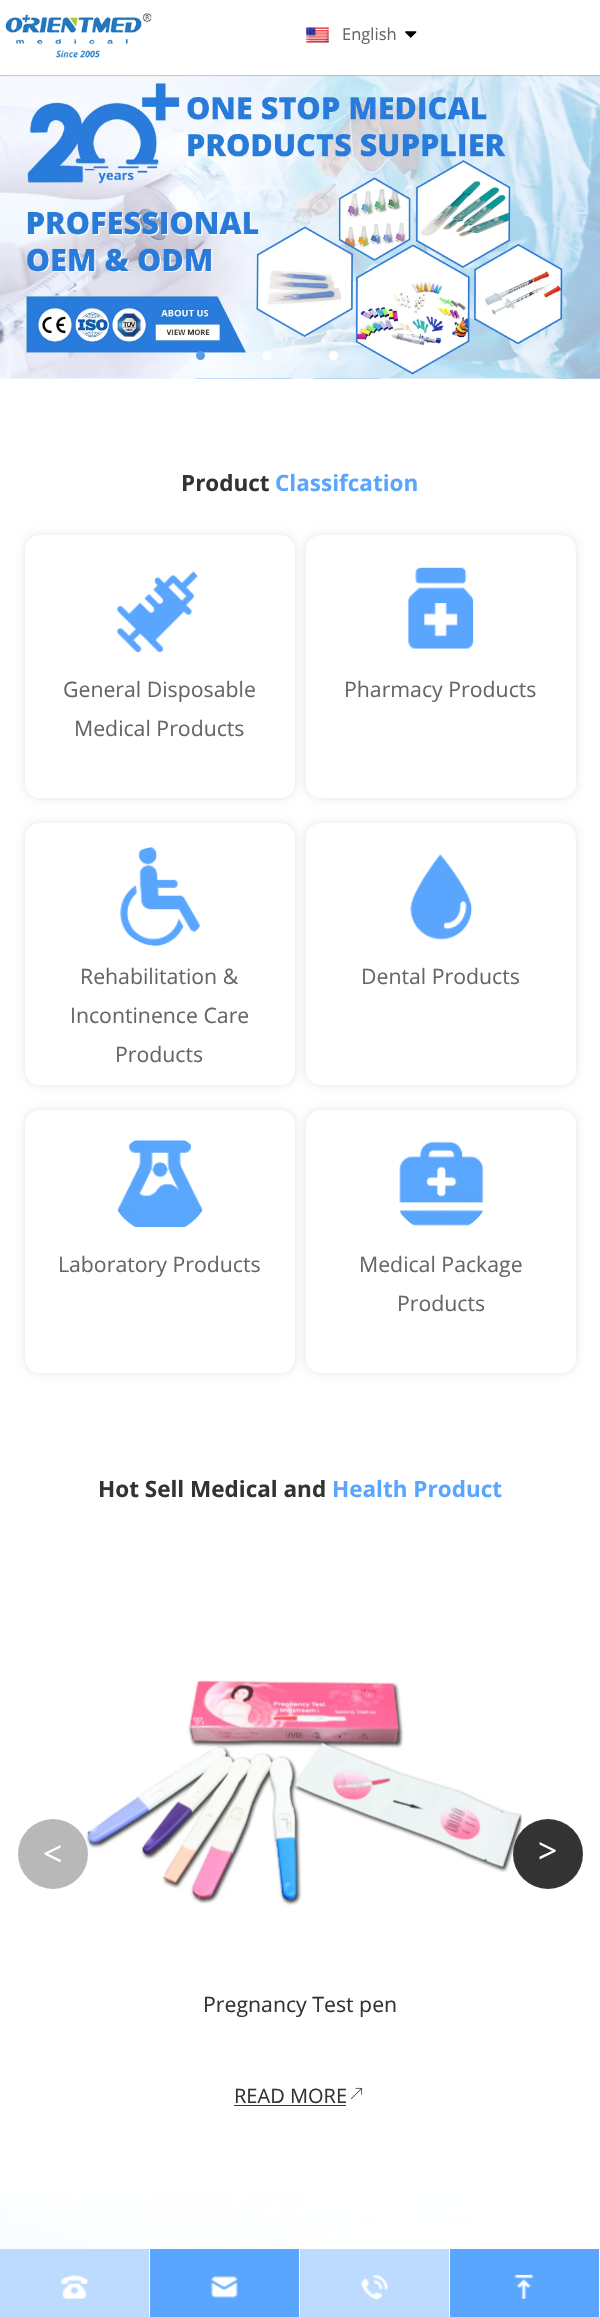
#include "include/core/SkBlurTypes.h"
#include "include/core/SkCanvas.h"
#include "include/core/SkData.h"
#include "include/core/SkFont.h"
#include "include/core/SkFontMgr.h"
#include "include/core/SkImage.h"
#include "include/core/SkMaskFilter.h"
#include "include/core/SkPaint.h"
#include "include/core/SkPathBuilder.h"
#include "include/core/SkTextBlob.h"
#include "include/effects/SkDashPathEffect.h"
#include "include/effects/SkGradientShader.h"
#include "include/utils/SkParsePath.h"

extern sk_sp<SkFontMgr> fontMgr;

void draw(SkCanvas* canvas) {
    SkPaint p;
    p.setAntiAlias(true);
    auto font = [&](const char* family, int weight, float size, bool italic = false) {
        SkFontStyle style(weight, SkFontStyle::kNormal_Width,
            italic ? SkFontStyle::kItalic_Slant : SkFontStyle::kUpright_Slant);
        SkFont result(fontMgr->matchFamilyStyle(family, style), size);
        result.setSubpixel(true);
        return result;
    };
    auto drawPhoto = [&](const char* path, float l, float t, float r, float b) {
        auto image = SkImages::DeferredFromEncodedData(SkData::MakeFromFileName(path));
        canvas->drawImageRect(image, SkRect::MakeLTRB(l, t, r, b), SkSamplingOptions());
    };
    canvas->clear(0xFFFFFFFF);
    drawPhoto("media/4.png", 0, 378, 600, 379);
    drawPhoto("media/5.png", 0, 75, 600, 379);
    canvas->save();
    canvas->clipRect(SkRect::MakeLTRB(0, 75, 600, 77));
    p.setColor(0x33000000);
    p.setMaskFilter(SkMaskFilter::MakeBlur(kNormal_SkBlurStyle, 0.5f));
    canvas->drawRect(SkRect::MakeLTRB(0, 3, 600, 76), p);
    p.setMaskFilter(nullptr);
    canvas->restore();
    canvas->save();
    canvas->clipPath(SkPathBuilder(SkPathFillType::kEvenOdd).moveTo(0, 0).lineTo(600, 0).lineTo(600, 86).lineTo(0, 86).close().moveTo(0, 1).lineTo(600, 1).lineTo(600, 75).lineTo(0, 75).close().detach(), true);
    p.setColor(0x33FFFFFF);
    p.setMaskFilter(SkMaskFilter::MakeBlur(kNormal_SkBlurStyle, 3));
    canvas->drawRect(SkRect::MakeLTRB(0, 3, 600, 76), p);
    p.setMaskFilter(nullptr);
    canvas->restore();
    drawPhoto("media/1.png", 5, 13, 152, 58);
    drawPhoto("media/2.png", 306, 27, 329, 43);
    auto font1 = font("Open Sans", 400, 16.5f);
    p.setColor(0xFF666666);
    canvas->drawString("English", 342, 40, font1, p);
    drawPhoto("media/3.png", 405, 31, 417, 38);
    p.setColor(0xFF569CE4);
    canvas->drawCircle(200.5f, 355.5f, 4.5f, p);
    p.setColor(0xFFFFFFFF);
    canvas->drawRoundRect(SkRect::MakeLTRB(263, 351, 271, 360), 4, 4, p);
    canvas->drawCircle(333.5f, 355.5f, 4.5f, p);
    auto font2 = font("Open Sans", 700, 22.5f);
    p.setColor(0xFF333333);
    canvas->drawString("Product", 181, 491, font2, p);
    p.setColor(0xFF5AA6FF);
    canvas->drawString("Classifcation", 275, 491, font2, p);
    canvas->save();
    canvas->clipPath(SkPathBuilder(SkPathFillType::kEvenOdd).moveTo(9, 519).lineTo(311, 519).lineTo(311, 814).lineTo(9, 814).close().moveTo(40, 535).lineTo(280, 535).cubicTo(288.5f, 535, 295, 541.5f, 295, 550).lineTo(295, 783).cubicTo(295, 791.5f, 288.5f, 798, 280, 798).lineTo(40, 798).cubicTo(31.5f, 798, 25, 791.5f, 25, 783).lineTo(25, 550).cubicTo(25, 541.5f, 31.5f, 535, 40, 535).close().detach(), true);
    p.setColor(0x1A000000);
    p.setMaskFilter(SkMaskFilter::MakeBlur(kNormal_SkBlurStyle, 5));
    canvas->drawRoundRect(SkRect::MakeLTRB(25, 535, 295, 798), 15, 15, p);
    p.setMaskFilter(nullptr);
    canvas->restore();
    drawPhoto("media/6.png", 116, 571, 198, 653);
    auto font3 = font("Open Sans", 400, 21.25f);
    p.setColor(0xFF666666);
    canvas->drawString("General Disposable", 63, 697, font3, p);
    canvas->drawString("Medical Products", 74, 736, font3, p);
    canvas->save();
    canvas->clipPath(SkPathBuilder(SkPathFillType::kEvenOdd).moveTo(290, 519).lineTo(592, 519).lineTo(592, 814).lineTo(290, 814).close().moveTo(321, 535).lineTo(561, 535).cubicTo(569.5f, 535, 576, 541.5f, 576, 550).lineTo(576, 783).cubicTo(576, 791.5f, 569.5f, 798, 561, 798).lineTo(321, 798).cubicTo(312.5f, 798, 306, 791.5f, 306, 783).lineTo(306, 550).cubicTo(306, 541.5f, 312.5f, 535, 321, 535).close().detach(), true);
    p.setColor(0x1A000000);
    p.setMaskFilter(SkMaskFilter::MakeBlur(kNormal_SkBlurStyle, 5));
    canvas->drawRoundRect(SkRect::MakeLTRB(306, 535, 576, 798), 15, 15, p);
    p.setMaskFilter(nullptr);
    canvas->restore();
    drawPhoto("media/7.png", 408, 567, 474, 649);
    p.setColor(0xFF666666);
    canvas->drawString("Pharmacy Products", 344, 697, font3, p);
    canvas->save();
    canvas->clipPath(SkPathBuilder(SkPathFillType::kEvenOdd).moveTo(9, 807).lineTo(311, 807).lineTo(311, 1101).lineTo(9, 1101).close().moveTo(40, 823).lineTo(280, 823).cubicTo(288.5f, 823, 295, 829.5f, 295, 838).lineTo(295, 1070).cubicTo(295, 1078.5f, 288.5f, 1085, 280, 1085).lineTo(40, 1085).cubicTo(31.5f, 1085, 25, 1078.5f, 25, 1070).lineTo(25, 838).cubicTo(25, 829.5f, 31.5f, 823, 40, 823).close().detach(), true);
    p.setColor(0x1A000000);
    p.setMaskFilter(SkMaskFilter::MakeBlur(kNormal_SkBlurStyle, 5));
    canvas->drawRoundRect(SkRect::MakeLTRB(25, 823, 295, 1085), 15, 15, p);
    p.setMaskFilter(nullptr);
    canvas->restore();
    drawPhoto("media/8.png", 120, 847, 200, 946);
    p.setColor(0xFF666666);
    {
        const struct { const char* s; float x, y; } items[] = {
            {"Rehabilitation &", 80, 984},
            {"Incontinence Care", 70, 1023},
            {"Products", 115, 1062},
        };
        for (auto [s, x, y] : items) {
            canvas->drawString(s, x, y, font3, p);
        }
    }
    canvas->save();
    canvas->clipPath(SkPathBuilder(SkPathFillType::kEvenOdd).moveTo(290, 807).lineTo(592, 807).lineTo(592, 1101).lineTo(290, 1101).close().moveTo(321, 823).lineTo(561, 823).cubicTo(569.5f, 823, 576, 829.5f, 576, 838).lineTo(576, 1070).cubicTo(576, 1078.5f, 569.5f, 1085, 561, 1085).lineTo(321, 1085).cubicTo(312.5f, 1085, 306, 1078.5f, 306, 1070).lineTo(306, 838).cubicTo(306, 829.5f, 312.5f, 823, 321, 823).close().detach(), true);
    p.setColor(0x1A000000);
    p.setMaskFilter(SkMaskFilter::MakeBlur(kNormal_SkBlurStyle, 5));
    canvas->drawRoundRect(SkRect::MakeLTRB(306, 823, 576, 1085), 15, 15, p);
    p.setMaskFilter(nullptr);
    canvas->restore();
    drawPhoto("media/9.png", 410, 854, 473, 940);
    p.setColor(0xFF666666);
    canvas->drawString("Dental Products", 361, 984, font3, p);
    canvas->save();
    canvas->clipPath(SkPathBuilder(SkPathFillType::kEvenOdd).moveTo(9, 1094).lineTo(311, 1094).lineTo(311, 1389).lineTo(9, 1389).close().moveTo(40, 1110).lineTo(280, 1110).cubicTo(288.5f, 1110, 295, 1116.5f, 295, 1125).lineTo(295, 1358).cubicTo(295, 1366.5f, 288.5f, 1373, 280, 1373).lineTo(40, 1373).cubicTo(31.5f, 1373, 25, 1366.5f, 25, 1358).lineTo(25, 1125).cubicTo(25, 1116.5f, 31.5f, 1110, 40, 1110).close().detach(), true);
    p.setColor(0x1A000000);
    p.setMaskFilter(SkMaskFilter::MakeBlur(kNormal_SkBlurStyle, 5));
    canvas->drawRoundRect(SkRect::MakeLTRB(25, 1110, 295, 1373), 15, 15, p);
    p.setMaskFilter(nullptr);
    canvas->restore();
    drawPhoto("media/10.png", 117, 1139, 203, 1228);
    p.setColor(0xFF666666);
    canvas->drawString("Laboratory Products", 58, 1272, font3, p);
    canvas->save();
    canvas->clipPath(SkPathBuilder(SkPathFillType::kEvenOdd).moveTo(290, 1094).lineTo(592, 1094).lineTo(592, 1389).lineTo(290, 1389).close().moveTo(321, 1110).lineTo(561, 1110).cubicTo(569.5f, 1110, 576, 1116.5f, 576, 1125).lineTo(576, 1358).cubicTo(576, 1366.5f, 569.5f, 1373, 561, 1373).lineTo(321, 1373).cubicTo(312.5f, 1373, 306, 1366.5f, 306, 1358).lineTo(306, 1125).cubicTo(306, 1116.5f, 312.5f, 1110, 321, 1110).close().detach(), true);
    p.setColor(0x1A000000);
    p.setMaskFilter(SkMaskFilter::MakeBlur(kNormal_SkBlurStyle, 5));
    canvas->drawRoundRect(SkRect::MakeLTRB(306, 1110, 576, 1373), 15, 15, p);
    p.setMaskFilter(nullptr);
    canvas->restore();
    drawPhoto("media/11.png", 399, 1141, 484, 1226);
    p.setColor(0xFF666666);
    canvas->drawString("Medical Package", 359, 1272, font3, p);
    canvas->drawString("Products", 397, 1311, font3, p);
    p.setColor(0xFF333333);
    canvas->drawString("Hot Sell Medical and", 98, 1497, font2, p);
    p.setColor(0xFF5AA6FF);
    canvas->drawString("Health Product", 332, 1497, font2, p);
    drawPhoto("media/12.png", 86, 1680, 522, 1906);
    p.setColor(0xFFB8B8B8);
    canvas->drawCircle(53, 1854, 35, p);
    auto font4 = font("Liberation Serif", 700, 34);
    p.setColor(0xFFFFFFFF);
    canvas->drawString("<", 43, 1865, font4, p);
    p.setColor(0xFF333333);
    canvas->drawCircle(548, 1854, 35, p);
    p.setColor(0xFFFFFFFF);
    canvas->drawString(">", 538, 1862, font4, p);
    p.setColor(0xFF333333);
    canvas->drawString("Pregnancy Test pen", 203, 2012, font3, p);
    auto font5 = font("Open Sans", 400, 20);
    canvas->drawString("READ MORE", 234, 2103, font5, p);
    canvas->drawRect(SkRect::MakeLTRB(234, 2105, 346, 2106), p);
    drawPhoto("media/13.png", 350, 2087, 363, 2100);
    drawPhoto("media/14.png", 0, 2190, 471, 2249);
    p.setColor(0xFFBCDBFF);
    canvas->drawRect(SkRect::MakeLTRB(0, 2249, 149, 2317), p);
    drawPhoto("media/15.png", 60, 2275, 88, 2299);
    p.setColor(0xFF5AA6FF);
    canvas->drawRect(SkRect::MakeLTRB(150, 2249, 299, 2317), p);
    drawPhoto("media/16.png", 210, 2276, 238, 2298);
    p.setColor(0xFFBCDBFF);
    canvas->drawRect(SkRect::MakeLTRB(300, 2249, 449, 2317), p);
    drawPhoto("media/17.png", 360, 2275, 388, 2300);
    p.setColor(0xFF5AA6FF);
    canvas->drawRect(SkRect::MakeLTRB(450, 2249, 599, 2317), p);
    drawPhoto("media/18.png", 514, 2274, 534, 2299);
}
